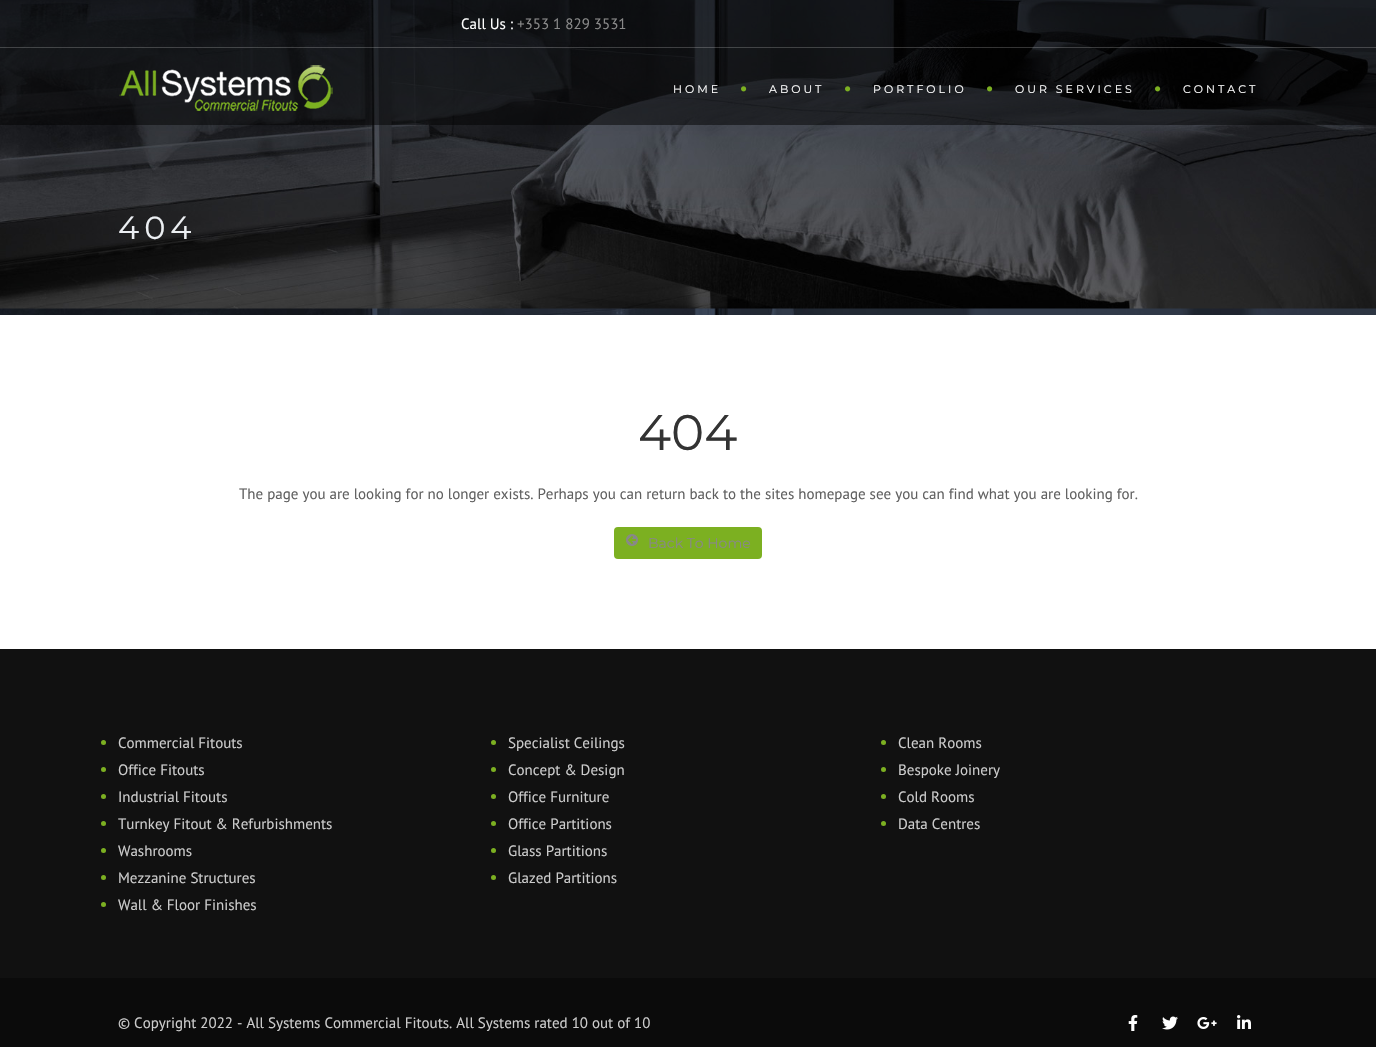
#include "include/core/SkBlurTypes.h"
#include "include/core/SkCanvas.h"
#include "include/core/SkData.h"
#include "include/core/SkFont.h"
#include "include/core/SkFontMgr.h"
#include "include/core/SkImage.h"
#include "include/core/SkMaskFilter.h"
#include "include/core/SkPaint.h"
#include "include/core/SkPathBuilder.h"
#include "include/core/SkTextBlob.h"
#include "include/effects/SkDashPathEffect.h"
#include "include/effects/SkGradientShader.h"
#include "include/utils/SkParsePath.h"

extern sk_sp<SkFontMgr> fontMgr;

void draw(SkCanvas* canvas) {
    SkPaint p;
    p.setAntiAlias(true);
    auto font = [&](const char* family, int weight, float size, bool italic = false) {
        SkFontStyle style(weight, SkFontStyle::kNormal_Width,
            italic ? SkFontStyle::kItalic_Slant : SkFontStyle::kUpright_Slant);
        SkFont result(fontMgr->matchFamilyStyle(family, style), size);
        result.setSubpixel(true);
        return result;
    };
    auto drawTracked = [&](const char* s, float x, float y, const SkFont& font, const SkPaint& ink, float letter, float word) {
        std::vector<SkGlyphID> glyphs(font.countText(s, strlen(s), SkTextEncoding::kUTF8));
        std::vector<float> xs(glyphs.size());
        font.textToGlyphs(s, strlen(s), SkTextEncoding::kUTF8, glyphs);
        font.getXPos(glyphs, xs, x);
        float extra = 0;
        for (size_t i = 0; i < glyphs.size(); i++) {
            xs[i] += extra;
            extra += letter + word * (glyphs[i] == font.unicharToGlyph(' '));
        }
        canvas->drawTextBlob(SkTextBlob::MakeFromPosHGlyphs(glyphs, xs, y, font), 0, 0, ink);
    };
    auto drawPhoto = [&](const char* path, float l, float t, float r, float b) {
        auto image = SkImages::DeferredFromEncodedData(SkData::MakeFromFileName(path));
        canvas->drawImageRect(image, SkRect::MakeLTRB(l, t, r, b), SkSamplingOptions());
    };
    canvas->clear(0xFFFFFFFF);
    drawPhoto("media/6.png", 0, 0, 1376, 315);
    p.setColor(0x80000000);
    canvas->drawRect(SkRect::MakeLTRB(0, 0, 1376, 125), p);
    p.setColor(0x33FFFFFF);
    canvas->drawRect(SkRect::MakeLTRB(0, 47, 1376, 48), p);
    auto font1 = font("PT Sans", 400, 15);
    p.setColor(0xFFFFFFFF);
    canvas->drawString("Call Us :", 461, 29, font1, p);
    p.setColor(0xFF888888);
    canvas->drawString("+353 1 829 3531", 517, 29, font1, p);
    drawPhoto("media/1.png", 119, 65, 333, 111);
    auto font2 = font("Montserrat", 400, 11);
    p.setColor(0xFFFFFFFF);
    drawTracked("HOME", 673, 93, font2, p, 3, 0);
    drawPhoto("media/2.png", 741, 86, 747, 92);
    drawTracked("ABOUT", 769, 93, font2, p, 3, 0);
    drawPhoto("media/3.png", 845, 86, 851, 92);
    drawTracked("PORTFOLIO", 873, 93, font2, p, 3, 0);
    drawPhoto("media/4.png", 987, 86, 993, 92);
    drawTracked("OUR SERVICES", 1015, 93, font2, p, 3, 0);
    drawPhoto("media/5.png", 1155, 86, 1161, 92);
    drawTracked("CONTACT", 1183, 93, font2, p, 3, 0);
    auto font3 = font("Montserrat", 400, 32);
    p.setColor(0xFFECEFF3);
    drawTracked("404", 118, 239, font3, p, 5, 0);
    auto font4 = font("Montserrat", 400, 50);
    p.setColor(0xFF333333);
    canvas->drawString("404", 638, 450, font4, p);
    p.setColor(0xFF606060);
    canvas->drawString("The page you are looking for no longer exists. Perhaps you can return back to the sites homepage see you can find what you are looking for.", 239, 499, font1, p);
    p.setColor(0xFF7CB021);
    canvas->drawRoundRect(SkRect::MakeLTRB(614, 527, 762, 559), 4, 4, p);
    drawPhoto("media/7.png", 626, 534, 638, 546);
    auto font5 = font("Montserrat", 400, 14);
    p.setColor(0xFF888888);
    canvas->drawString("Back To Home", 648, 548, font5, p);
    p.setColor(0xFF111111);
    canvas->drawRect(SkRect::MakeLTRB(0, 649, 1376, 978), p);
    p.setColor(0xFF7CB021);
    canvas->drawCircle(103.5f, 742.5f, 2.5f, p);
    p.setColor(0xFFCCCCCC);
    canvas->drawString("Commercial Fitouts", 118, 748, font1, p);
    p.setColor(0xFF7CB021);
    canvas->drawCircle(103.5f, 769.5f, 2.5f, p);
    p.setColor(0xFFCCCCCC);
    canvas->drawString("Office Fitouts", 118, 775, font1, p);
    p.setColor(0xFF7CB021);
    canvas->drawCircle(103.5f, 796.5f, 2.5f, p);
    p.setColor(0xFFCCCCCC);
    canvas->drawString("Industrial Fitouts", 118, 802, font1, p);
    p.setColor(0xFF7CB021);
    canvas->drawCircle(103.5f, 823.5f, 2.5f, p);
    p.setColor(0xFFCCCCCC);
    canvas->drawString("Turnkey Fitout & Refurbishments", 118, 829, font1, p);
    p.setColor(0xFF7CB021);
    canvas->drawCircle(103.5f, 850.5f, 2.5f, p);
    p.setColor(0xFFCCCCCC);
    canvas->drawString("Washrooms", 118, 856, font1, p);
    p.setColor(0xFF7CB021);
    canvas->drawCircle(103.5f, 877.5f, 2.5f, p);
    p.setColor(0xFFCCCCCC);
    canvas->drawString("Mezzanine Structures", 118, 883, font1, p);
    p.setColor(0xFF7CB021);
    canvas->drawCircle(103.5f, 904.5f, 2.5f, p);
    p.setColor(0xFFCCCCCC);
    canvas->drawString("Wall & Floor Finishes", 118, 910, font1, p);
    p.setColor(0xFF7CB021);
    canvas->drawCircle(493.5f, 742.5f, 2.5f, p);
    p.setColor(0xFFCCCCCC);
    canvas->drawString("Specialist Ceilings", 508, 748, font1, p);
    p.setColor(0xFF7CB021);
    canvas->drawCircle(493.5f, 769.5f, 2.5f, p);
    p.setColor(0xFFCCCCCC);
    canvas->drawString("Concept & Design", 508, 775, font1, p);
    p.setColor(0xFF7CB021);
    canvas->drawCircle(493.5f, 796.5f, 2.5f, p);
    p.setColor(0xFFCCCCCC);
    canvas->drawString("Office Furniture", 508, 802, font1, p);
    p.setColor(0xFF7CB021);
    canvas->drawCircle(493.5f, 823.5f, 2.5f, p);
    p.setColor(0xFFCCCCCC);
    canvas->drawString("Office Partitions", 508, 829, font1, p);
    p.setColor(0xFF7CB021);
    canvas->drawCircle(493.5f, 850.5f, 2.5f, p);
    p.setColor(0xFFCCCCCC);
    canvas->drawString("Glass Partitions", 508, 856, font1, p);
    p.setColor(0xFF7CB021);
    canvas->drawCircle(493.5f, 877.5f, 2.5f, p);
    p.setColor(0xFFCCCCCC);
    canvas->drawString("Glazed Partitions", 508, 883, font1, p);
    p.setColor(0xFF7CB021);
    canvas->drawCircle(883.5f, 742.5f, 2.5f, p);
    p.setColor(0xFFCCCCCC);
    canvas->drawString("Clean Rooms", 898, 748, font1, p);
    p.setColor(0xFF7CB021);
    canvas->drawCircle(883.5f, 769.5f, 2.5f, p);
    p.setColor(0xFFCCCCCC);
    canvas->drawString("Bespoke Joinery", 898, 775, font1, p);
    p.setColor(0xFF7CB021);
    canvas->drawCircle(883.5f, 796.5f, 2.5f, p);
    p.setColor(0xFFCCCCCC);
    canvas->drawString("Cold Rooms", 898, 802, font1, p);
    p.setColor(0xFF7CB021);
    canvas->drawCircle(883.5f, 823.5f, 2.5f, p);
    p.setColor(0xFFCCCCCC);
    canvas->drawString("Data Centres", 898, 829, font1, p);
    p.setColor(0xFF0B0B0B);
    canvas->drawRect(SkRect::MakeLTRB(0, 978, 1376, 1047), p);
    p.setColor(0xFFCCCCCC);
    canvas->drawString("© Copyright 2022 - All Systems Commercial Fitouts. All Systems rated 10 out of 10", 118, 1028, font1, p);
    drawPhoto("media/8.png", 1128, 1015, 1138, 1031);
    drawPhoto("media/9.png", 1162, 1016, 1178, 1030);
    drawPhoto("media/10.png", 1197, 1017, 1217, 1029);
    drawPhoto("media/11.png", 1237, 1015, 1251, 1029);
}
